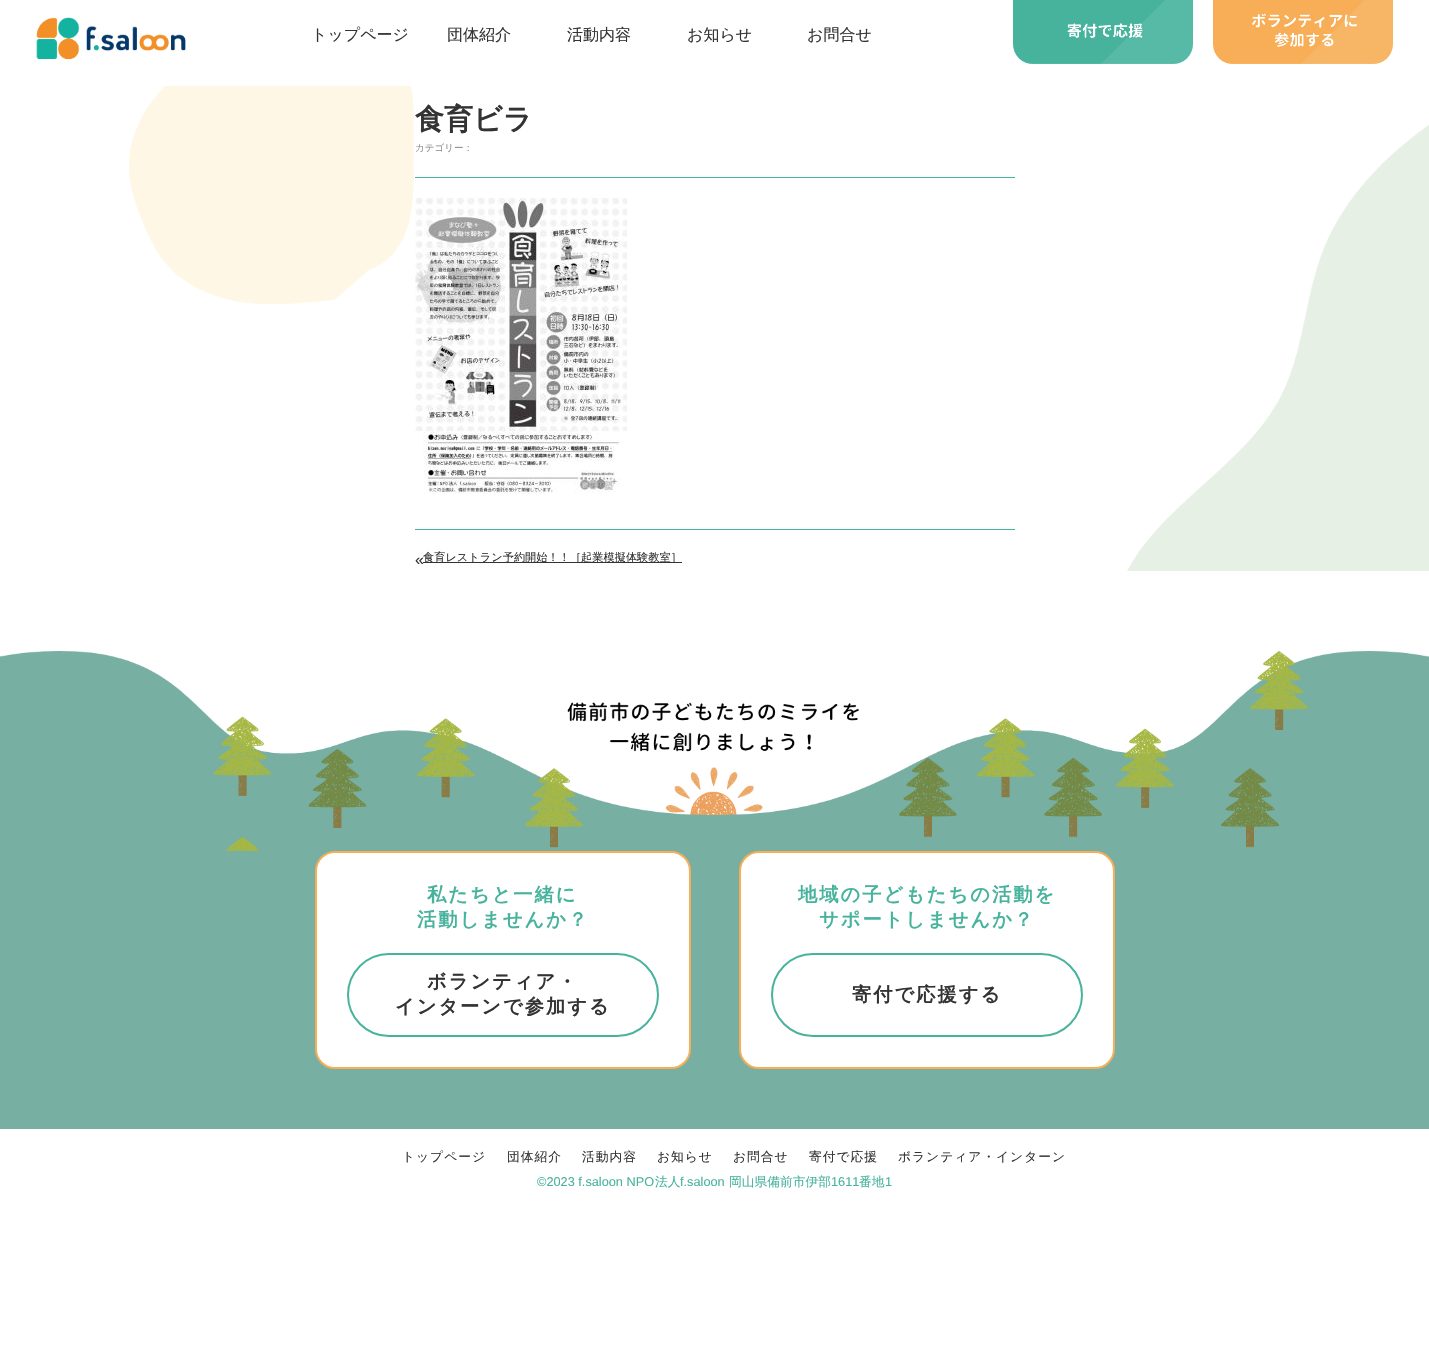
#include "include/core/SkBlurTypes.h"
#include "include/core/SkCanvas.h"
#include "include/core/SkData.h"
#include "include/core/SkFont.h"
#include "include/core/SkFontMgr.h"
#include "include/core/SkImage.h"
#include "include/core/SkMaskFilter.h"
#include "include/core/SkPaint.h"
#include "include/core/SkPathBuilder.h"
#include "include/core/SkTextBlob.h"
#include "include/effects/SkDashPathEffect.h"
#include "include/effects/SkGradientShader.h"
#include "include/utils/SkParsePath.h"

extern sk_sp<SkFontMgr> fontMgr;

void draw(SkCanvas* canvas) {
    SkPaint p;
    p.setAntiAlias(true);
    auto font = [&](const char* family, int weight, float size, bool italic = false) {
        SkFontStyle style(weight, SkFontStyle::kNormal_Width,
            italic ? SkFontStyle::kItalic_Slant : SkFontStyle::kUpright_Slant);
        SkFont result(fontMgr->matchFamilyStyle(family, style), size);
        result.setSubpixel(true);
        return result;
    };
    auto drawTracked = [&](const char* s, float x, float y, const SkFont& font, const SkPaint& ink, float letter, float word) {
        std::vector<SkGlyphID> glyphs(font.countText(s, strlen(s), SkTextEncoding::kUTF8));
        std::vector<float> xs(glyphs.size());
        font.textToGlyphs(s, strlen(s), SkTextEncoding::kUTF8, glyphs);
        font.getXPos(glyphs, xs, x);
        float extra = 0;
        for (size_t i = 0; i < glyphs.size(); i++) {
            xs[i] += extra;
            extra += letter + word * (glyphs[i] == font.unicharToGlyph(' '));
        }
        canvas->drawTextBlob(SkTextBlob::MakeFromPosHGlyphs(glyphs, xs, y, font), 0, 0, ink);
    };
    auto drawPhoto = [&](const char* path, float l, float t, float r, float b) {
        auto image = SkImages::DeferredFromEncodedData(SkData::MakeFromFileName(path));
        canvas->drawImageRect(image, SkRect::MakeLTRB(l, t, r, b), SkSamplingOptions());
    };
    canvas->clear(0xFFFFFFFF);
    drawPhoto("media/1.png", 36, 17, 186, 60);
    auto font1 = font("WenQuanYi Zen Hei", 500, 16);
    p.setColor(0xFF333333);
    {
        const struct { const char* s; float x, y; } items[] = {
            {"トップページ", 311, 40},
            {"団体紹介", 447, 40},
            {"活動内容", 567, 40},
            {"お知らせ", 687, 40},
            {"お問合せ", 807, 40},
        };
        for (auto [s, x, y] : items) {
            canvas->drawString(s, x, y, font1, p);
        }
    }
    drawPhoto("media/2.png", 1013, 0, 1193, 64);
    drawPhoto("media/3.png", 1213, 0, 1393, 64);
    drawPhoto("media/4.png", 129, 86, 1429, 571);
    auto font2 = font("WenQuanYi Zen Hei", 700, 29);
    canvas->drawString("食育ビラ", 415, 129, font2, p);
    auto font3 = font("WenQuanYi Zen Hei", 500, 9.5f);
    p.setColor(0xFF8D8D8D);
    canvas->drawString("カテゴリー：", 415, 151, font3, p);
    p.setColor(0xFF47B39D);
    canvas->drawRect(SkRect::MakeLTRB(415, 177, 1015, 178), p);
    drawPhoto("media/5.png", 415, 198, 627, 494);
    canvas->drawRect(SkRect::MakeLTRB(415, 529, 1015, 530), p);
    auto font4 = font("Liberation Sans", 400, 16);
    p.setColor(0xFF333333);
    canvas->drawString("«", 415, 565, font4, p);
    canvas->drawRect(SkRect::MakeLTRB(423, 562, 682, 563), p);
    auto font5 = font("WenQuanYi Zen Hei", 500, 11.2f);
    canvas->drawString("食育レストラン予約開始！！［起業模擬体験教室］", 423, 561, font5, p);
    drawPhoto("media/6.png", 0, 651, 1429, 851);
    p.setColor(0xFF77AFA3);
    canvas->drawRect(SkRect::MakeLTRB(0, 851, 1429, 1129), p);
    p.setColor(0xFFFFFFFF);
    canvas->drawRoundRect(SkRect::MakeLTRB(316, 852, 690, 1068), 19, 19, p);
    p.setStyle(SkPaint::kStroke_Style);
    p.setStrokeWidth(2);
    p.setColor(0xFFF7AE57);
    canvas->drawRoundRect(SkRect::MakeLTRB(316, 852, 690, 1068), 19, 19, p);
    auto font6 = font("WenQuanYi Zen Hei", 700, 19.25f);
    p.setStyle(SkPaint::kFill_Style);
    p.setColor(0xFF47B39D);
    drawTracked("私たちと一緒に", 427, 901, font6, p, 2, 0);
    drawTracked("活動しませんか？", 417, 926, font6, p, 2, 0);
    p.setStyle(SkPaint::kStroke_Style);
    canvas->drawRoundRect(SkRect::MakeLTRB(348, 954, 658, 1036), 41, 41, p);
    p.setStyle(SkPaint::kFill_Style);
    p.setColor(0xFF333333);
    drawTracked("ボランティア・", 427, 988, font6, p, 2, 0);
    drawTracked("インターンで参加する", 395, 1013, font6, p, 2, 0);
    p.setColor(0xFFFFFFFF);
    canvas->drawRoundRect(SkRect::MakeLTRB(740, 852, 1114, 1068), 19, 19, p);
    p.setStyle(SkPaint::kStroke_Style);
    p.setColor(0xFFF7AE57);
    canvas->drawRoundRect(SkRect::MakeLTRB(740, 852, 1114, 1068), 19, 19, p);
    p.setStyle(SkPaint::kFill_Style);
    p.setColor(0xFF47B39D);
    drawTracked("地域の子どもたちの活動を", 798, 901, font6, p, 2, 0);
    drawTracked("サポートしませんか？", 819, 926, font6, p, 2, 0);
    p.setStyle(SkPaint::kStroke_Style);
    canvas->drawRoundRect(SkRect::MakeLTRB(772, 954, 1082, 1036), 41, 41, p);
    p.setStyle(SkPaint::kFill_Style);
    p.setColor(0xFF333333);
    drawTracked("寄付で応援する", 852, 1001, font6, p, 2, 0);
    auto font7 = font("WenQuanYi Zen Hei", 500, 12.75f);
    {
        const struct { const char* s; float x, y; } items[] = {
            {"トップページ", 402, 1161},
            {"団体紹介", 507, 1161},
            {"活動内容", 582, 1161},
            {"お知らせ", 657, 1161},
            {"お問合せ", 733, 1161},
            {"寄付で応援", 809, 1161},
            {"ボランティア・インターン", 898, 1161},
        };
        for (auto [s, x, y] : items) {
            drawTracked(s, x, y, font7, p, 1, 0);
        }
    }
    auto font8 = font("Liberation Sans", 400, 12.75f);
    p.setColor(0xFF47B39D);
    canvas->drawString("©2023 f.saloon NPO", 537, 1186, font8, p);
    canvas->drawString("法人", 655, 1186, font7, p);
    canvas->drawString("f.saloon", 680, 1186, font8, p);
    canvas->drawString("岡山県備前市伊部", 729, 1186, font7, p);
    canvas->drawString("1611", 831, 1186, font8, p);
    canvas->drawString("番地", 859, 1186, font7, p);
    canvas->drawString("1", 885, 1186, font8, p);
}
